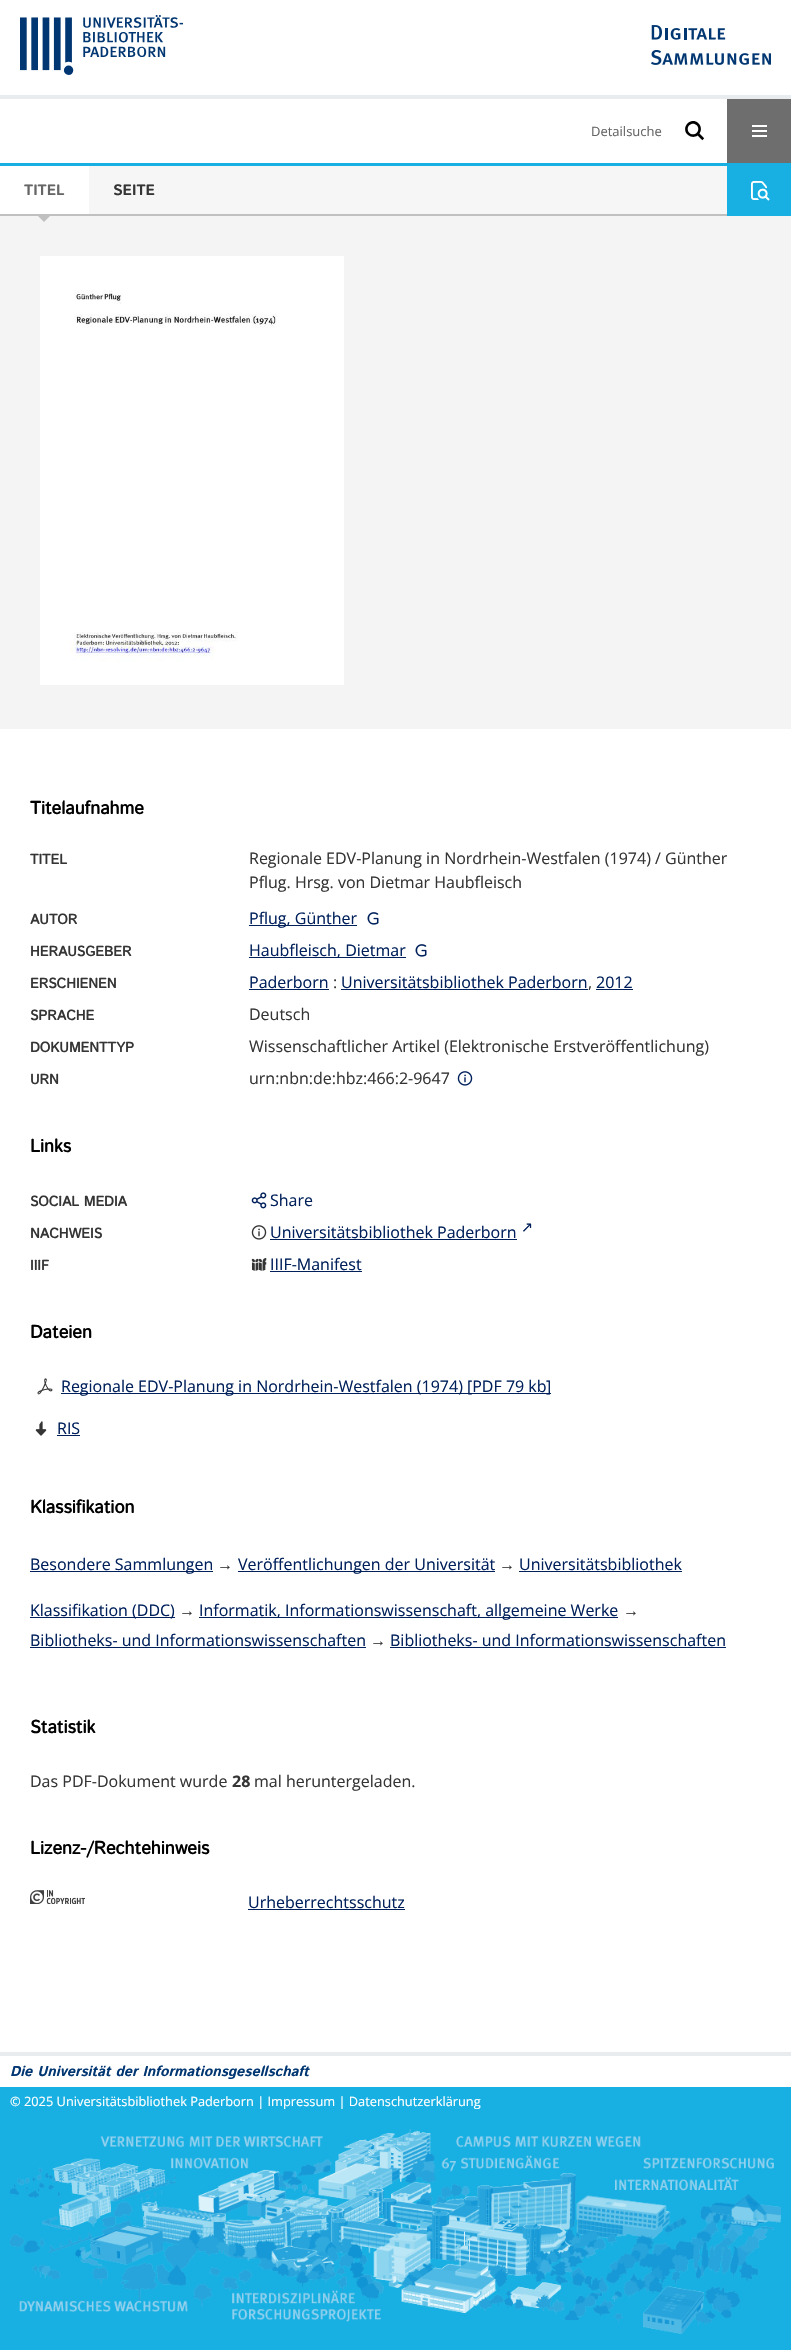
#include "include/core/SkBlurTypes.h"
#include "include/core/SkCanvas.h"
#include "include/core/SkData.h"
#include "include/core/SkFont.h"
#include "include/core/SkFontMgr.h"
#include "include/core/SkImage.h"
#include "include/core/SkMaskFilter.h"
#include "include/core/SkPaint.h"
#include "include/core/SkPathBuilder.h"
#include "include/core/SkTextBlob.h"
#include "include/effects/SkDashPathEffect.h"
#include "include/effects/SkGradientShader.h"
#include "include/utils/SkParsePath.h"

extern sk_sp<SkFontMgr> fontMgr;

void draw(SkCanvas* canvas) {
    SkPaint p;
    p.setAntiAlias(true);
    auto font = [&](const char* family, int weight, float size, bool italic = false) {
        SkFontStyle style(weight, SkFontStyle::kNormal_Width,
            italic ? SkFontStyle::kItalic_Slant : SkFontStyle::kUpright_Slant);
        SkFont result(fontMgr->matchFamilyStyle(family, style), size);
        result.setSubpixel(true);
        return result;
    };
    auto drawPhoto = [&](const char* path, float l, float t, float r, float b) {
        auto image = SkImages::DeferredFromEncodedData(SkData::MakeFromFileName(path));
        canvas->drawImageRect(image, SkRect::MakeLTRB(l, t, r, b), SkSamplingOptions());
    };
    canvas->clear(0xFFFFFFFF);
    p.setColor(0xFFE8ECEF);
    canvas->drawRect(SkRect::MakeLTRB(0, 95, 791, 99), p);
    drawPhoto("media/1.png", 20, 15, 183, 75);
    drawPhoto("media/2.png", 651, 25, 771, 65);
    auto font1 = font("Open Sans", 400, 13);
    p.setColor(0xFF666666);
    canvas->drawString("Detailsuche", 591, 136, font1, p);
    drawPhoto("media/3.png", 685, 121, 705, 141);
    p.setColor(0xFF6E6E6E);
    canvas->drawRect(SkRect::MakeLTRB(727, 99, 791, 163), p);
    drawPhoto("media/4.png", 752, 125, 767, 137);
    {
        const struct { float l, t, r, b; SkColor color; } items[] = {
            {0, 163, 791, 166, 0xFF18B0E2},
            {89, 166, 727, 214, 0xFFF6F6F6},
            {0, 214, 727, 216, 0xFFC0C0C0},
        };
        for (auto [l, t, r, b, color] : items) {
            p.setColor(color);
            canvas->drawRect(SkRect::MakeLTRB(l, t, r, b), p);
        }
    }
    auto font2 = font("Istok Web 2", 700, 15);
    p.setColor(0xFF666666);
    canvas->drawString("TITEL", 24, 195, font2, p);
    p.setColor(0xFFF4F4F4);
    canvas->drawRect(SkRect::MakeLTRB(0, 216, 791, 729), p);
    p.setColor(0xFFC0C0C0);
    canvas->drawPath(SkPathBuilder().moveTo(36, 214).lineTo(52, 214).lineTo(44, 222).close().detach(), p);
    p.setColor(0xFF353535);
    canvas->drawString("SEITE", 113, 195, font2, p);
    p.setColor(0xFF18B0E2);
    canvas->drawRect(SkRect::MakeLTRB(727, 166, 791, 216), p);
    drawPhoto("media/5.png", 751, 181, 770, 201);
    drawPhoto("media/6.png", 40, 256, 344, 685);
    auto font3 = font("Istok Web", 700, 18);
    p.setColor(0xFF000000);
    canvas->drawString("Titelaufnahme", 30, 814, font3, p);
    auto font4 = font("Istok Web", 700, 14);
    p.setColor(0xFF353535);
    canvas->drawString("TITEL", 30, 864, font4, p);
    auto font5 = font("Open Sans", 400, 16);
    canvas->drawString("Regionale EDV-Planung in Nordrhein-Westfalen (1974) / Günther", 249, 864, font5, p);
    canvas->drawString("Pflug. Hrsg. von Dietmar Haubfleisch", 249, 888, font5, p);
    canvas->drawString("AUTOR", 30, 924, font4, p);
    p.setColor(0xFF00205B);
    canvas->drawRect(SkRect::MakeLTRB(249, 925, 357, 926), p);
    canvas->drawString("Pflug, Günther", 249, 924, font5, p);
    drawPhoto("media/7.png", 367, 912, 379, 925);
    p.setColor(0xFF353535);
    canvas->drawString("HERAUSGEBER", 30, 956, font4, p);
    p.setColor(0xFF00205B);
    canvas->drawRect(SkRect::MakeLTRB(249, 957, 406, 958), p);
    canvas->drawString("Haubfleisch, Dietmar", 249, 956, font5, p);
    drawPhoto("media/7.png", 415, 944, 427, 957);
    p.setColor(0xFF353535);
    canvas->drawString("ERSCHIENEN", 30, 988, font4, p);
    p.setColor(0xFF00205B);
    canvas->drawString("Paderborn", 249, 988, font5, p);
    canvas->drawRect(SkRect::MakeLTRB(249, 989, 329, 990), p);
    p.setColor(0xFF353535);
    canvas->drawString(":", 333, 988, font5, p);
    p.setColor(0xFF00205B);
    canvas->drawString("Universitätsbibliothek Paderborn", 341, 988, font5, p);
    canvas->drawRect(SkRect::MakeLTRB(341, 989, 588, 990), p);
    p.setColor(0xFF353535);
    canvas->drawString(",", 588, 988, font5, p);
    p.setColor(0xFF00205B);
    canvas->drawString("2012", 596, 988, font5, p);
    canvas->drawRect(SkRect::MakeLTRB(596, 989, 633, 990), p);
    p.setColor(0xFF353535);
    canvas->drawString("SPRACHE", 30, 1020, font4, p);
    canvas->drawString("Deutsch", 249, 1020, font5, p);
    canvas->drawString("DOKUMENTTYP", 30, 1052, font4, p);
    canvas->drawString("Wissenschaftlicher Artikel (Elektronische Erstveröffentlichung)", 249, 1052, font5, p);
    canvas->drawString("URN", 30, 1084, font4, p);
    canvas->drawString("urn:nbn:de:hbz:466:2-9647", 249, 1084, font5, p);
    drawPhoto("media/8.png", 457, 1071, 473, 1086);
    p.setColor(0xFF000000);
    canvas->drawString("Links", 30, 1152, font3, p);
    p.setColor(0xFF353535);
    canvas->drawString("SOCIAL MEDIA", 30, 1206, font4, p);
    drawPhoto("media/9.png", 251, 1192, 267, 1209);
    p.setColor(0xFF00205B);
    canvas->drawString("Share", 270, 1206, font5, p);
    p.setColor(0xFF353535);
    canvas->drawString("NACHWEIS", 30, 1238, font4, p);
    drawPhoto("media/10.png", 251, 1225, 267, 1240);
    p.setColor(0xFF00205B);
    canvas->drawString("Universitätsbibliothek Paderborn", 270, 1238, font5, p);
    canvas->drawRect(SkRect::MakeLTRB(270, 1239, 517, 1240), p);
    auto font6 = font("DejaVu Sans", 400, 14.4f);
    canvas->drawString("↗", 521, 1232, font6, p);
    p.setColor(0xFF353535);
    canvas->drawString("IIIF", 30, 1270, font4, p);
    drawPhoto("media/11.png", 251, 1258, 267, 1271);
    p.setColor(0xFF00205B);
    canvas->drawString("IIIF-Manifest", 270, 1270, font5, p);
    canvas->drawRect(SkRect::MakeLTRB(270, 1271, 362, 1272), p);
    p.setColor(0xFF000000);
    canvas->drawString("Dateien", 30, 1338, font3, p);
    drawPhoto("media/12.png", 37, 1378, 53, 1395);
    p.setColor(0xFF00205B);
    canvas->drawRect(SkRect::MakeLTRB(61, 1393, 501, 1394), p);
    canvas->drawString("Regionale EDV-Planung in Nordrhein-Westfalen (1974) [PDF 79 kb", 61, 1392, font5, p);
    canvas->drawRect(SkRect::MakeLTRB(501, 1393, 551, 1394), p);
    canvas->drawString("]", 546, 1392, font5, p);
    drawPhoto("media/13.png", 35, 1421, 47, 1436);
    canvas->drawString("RIS", 57, 1434, font5, p);
    canvas->drawRect(SkRect::MakeLTRB(57, 1435, 80, 1436), p);
    p.setColor(0xFF000000);
    canvas->drawString("Klassifikation", 30, 1513, font3, p);
    p.setColor(0xFF00205B);
    canvas->drawRect(SkRect::MakeLTRB(30, 1571, 213, 1572), p);
    canvas->drawString("Besondere Sammlungen", 30, 1570, font5, p);
    auto font7 = font("Liberation Sans", 400, 16);
    p.setColor(0xFF353535);
    canvas->drawString("→", 217, 1570, font7, p);
    p.setColor(0xFF00205B);
    canvas->drawRect(SkRect::MakeLTRB(238, 1571, 495, 1572), p);
    canvas->drawString("Veröffentlichungen der Universität", 238, 1570, font5, p);
    p.setColor(0xFF353535);
    canvas->drawString("→", 499, 1570, font7, p);
    p.setColor(0xFF00205B);
    canvas->drawString("Universitätsbibliothek", 519, 1570, font5, p);
    canvas->drawRect(SkRect::MakeLTRB(519, 1571, 682, 1572), p);
    canvas->drawRect(SkRect::MakeLTRB(30, 1617, 175, 1618), p);
    canvas->drawString("Klassifikation (DDC)", 30, 1616, font5, p);
    p.setColor(0xFF353535);
    canvas->drawString("→", 179, 1616, font7, p);
    p.setColor(0xFF00205B);
    canvas->drawRect(SkRect::MakeLTRB(199, 1617, 618, 1618), p);
    canvas->drawString("Informatik, Informationswissenschaft, allgemeine Werke", 199, 1616, font5, p);
    p.setColor(0xFF353535);
    canvas->drawString("→", 623, 1616, font7, p);
    p.setColor(0xFF00205B);
    canvas->drawString("Bibliotheks- und Informationswissenschaften", 30, 1646, font5, p);
    canvas->drawRect(SkRect::MakeLTRB(30, 1647, 366, 1648), p);
    p.setColor(0xFF353535);
    canvas->drawString("→", 370, 1646, font7, p);
    p.setColor(0xFF00205B);
    canvas->drawString("Bibliotheks- und Informationswissenschaften", 390, 1646, font5, p);
    canvas->drawRect(SkRect::MakeLTRB(390, 1647, 726, 1648), p);
    p.setColor(0xFF000000);
    canvas->drawString("Statistik", 30, 1733, font3, p);
    p.setColor(0xFF353535);
    canvas->drawString("Das PDF-Dokument wurde", 30, 1787, font5, p);
    auto font8 = font("Open Sans", 700, 16);
    canvas->drawString("28", 232, 1787, font8, p);
    canvas->drawString("mal heruntergeladen.", 254, 1787, font5, p);
    p.setColor(0xFF000000);
    canvas->drawString("Lizenz-/Rechtehinweis", 30, 1854, font3, p);
    drawPhoto("media/14.png", 30, 1890, 85, 1904);
    p.setColor(0xFF00205B);
    canvas->drawString("Urheberrechtsschutz", 248, 1908, font5, p);
    canvas->drawRect(SkRect::MakeLTRB(248, 1909, 405, 1910), p);
    p.setColor(0xFFE8ECEF);
    canvas->drawRect(SkRect::MakeLTRB(0, 2052, 791, 2056), p);
    auto font9 = font("Istok Web", 700, 14.4f, true);
    p.setColor(0xFF003671);
    canvas->drawString("Die Universität der Informationsgesellschaft", 10, 2076, font9, p);
    p.setColor(0xFF18B0E2);
    canvas->drawRect(SkRect::MakeLTRB(0, 2087, 791, 2350), p);
    auto font10 = font("Open Sans", 400, 12.8f);
    p.setColor(0xFFFFFFFF);
    canvas->drawString("© 2025 Universitätsbibliothek Paderborn | Impressum | Datenschutzerklärung", 10, 2106, font10, p);
    drawPhoto("media/15.png", 10, 2129, 781, 2334);
}
